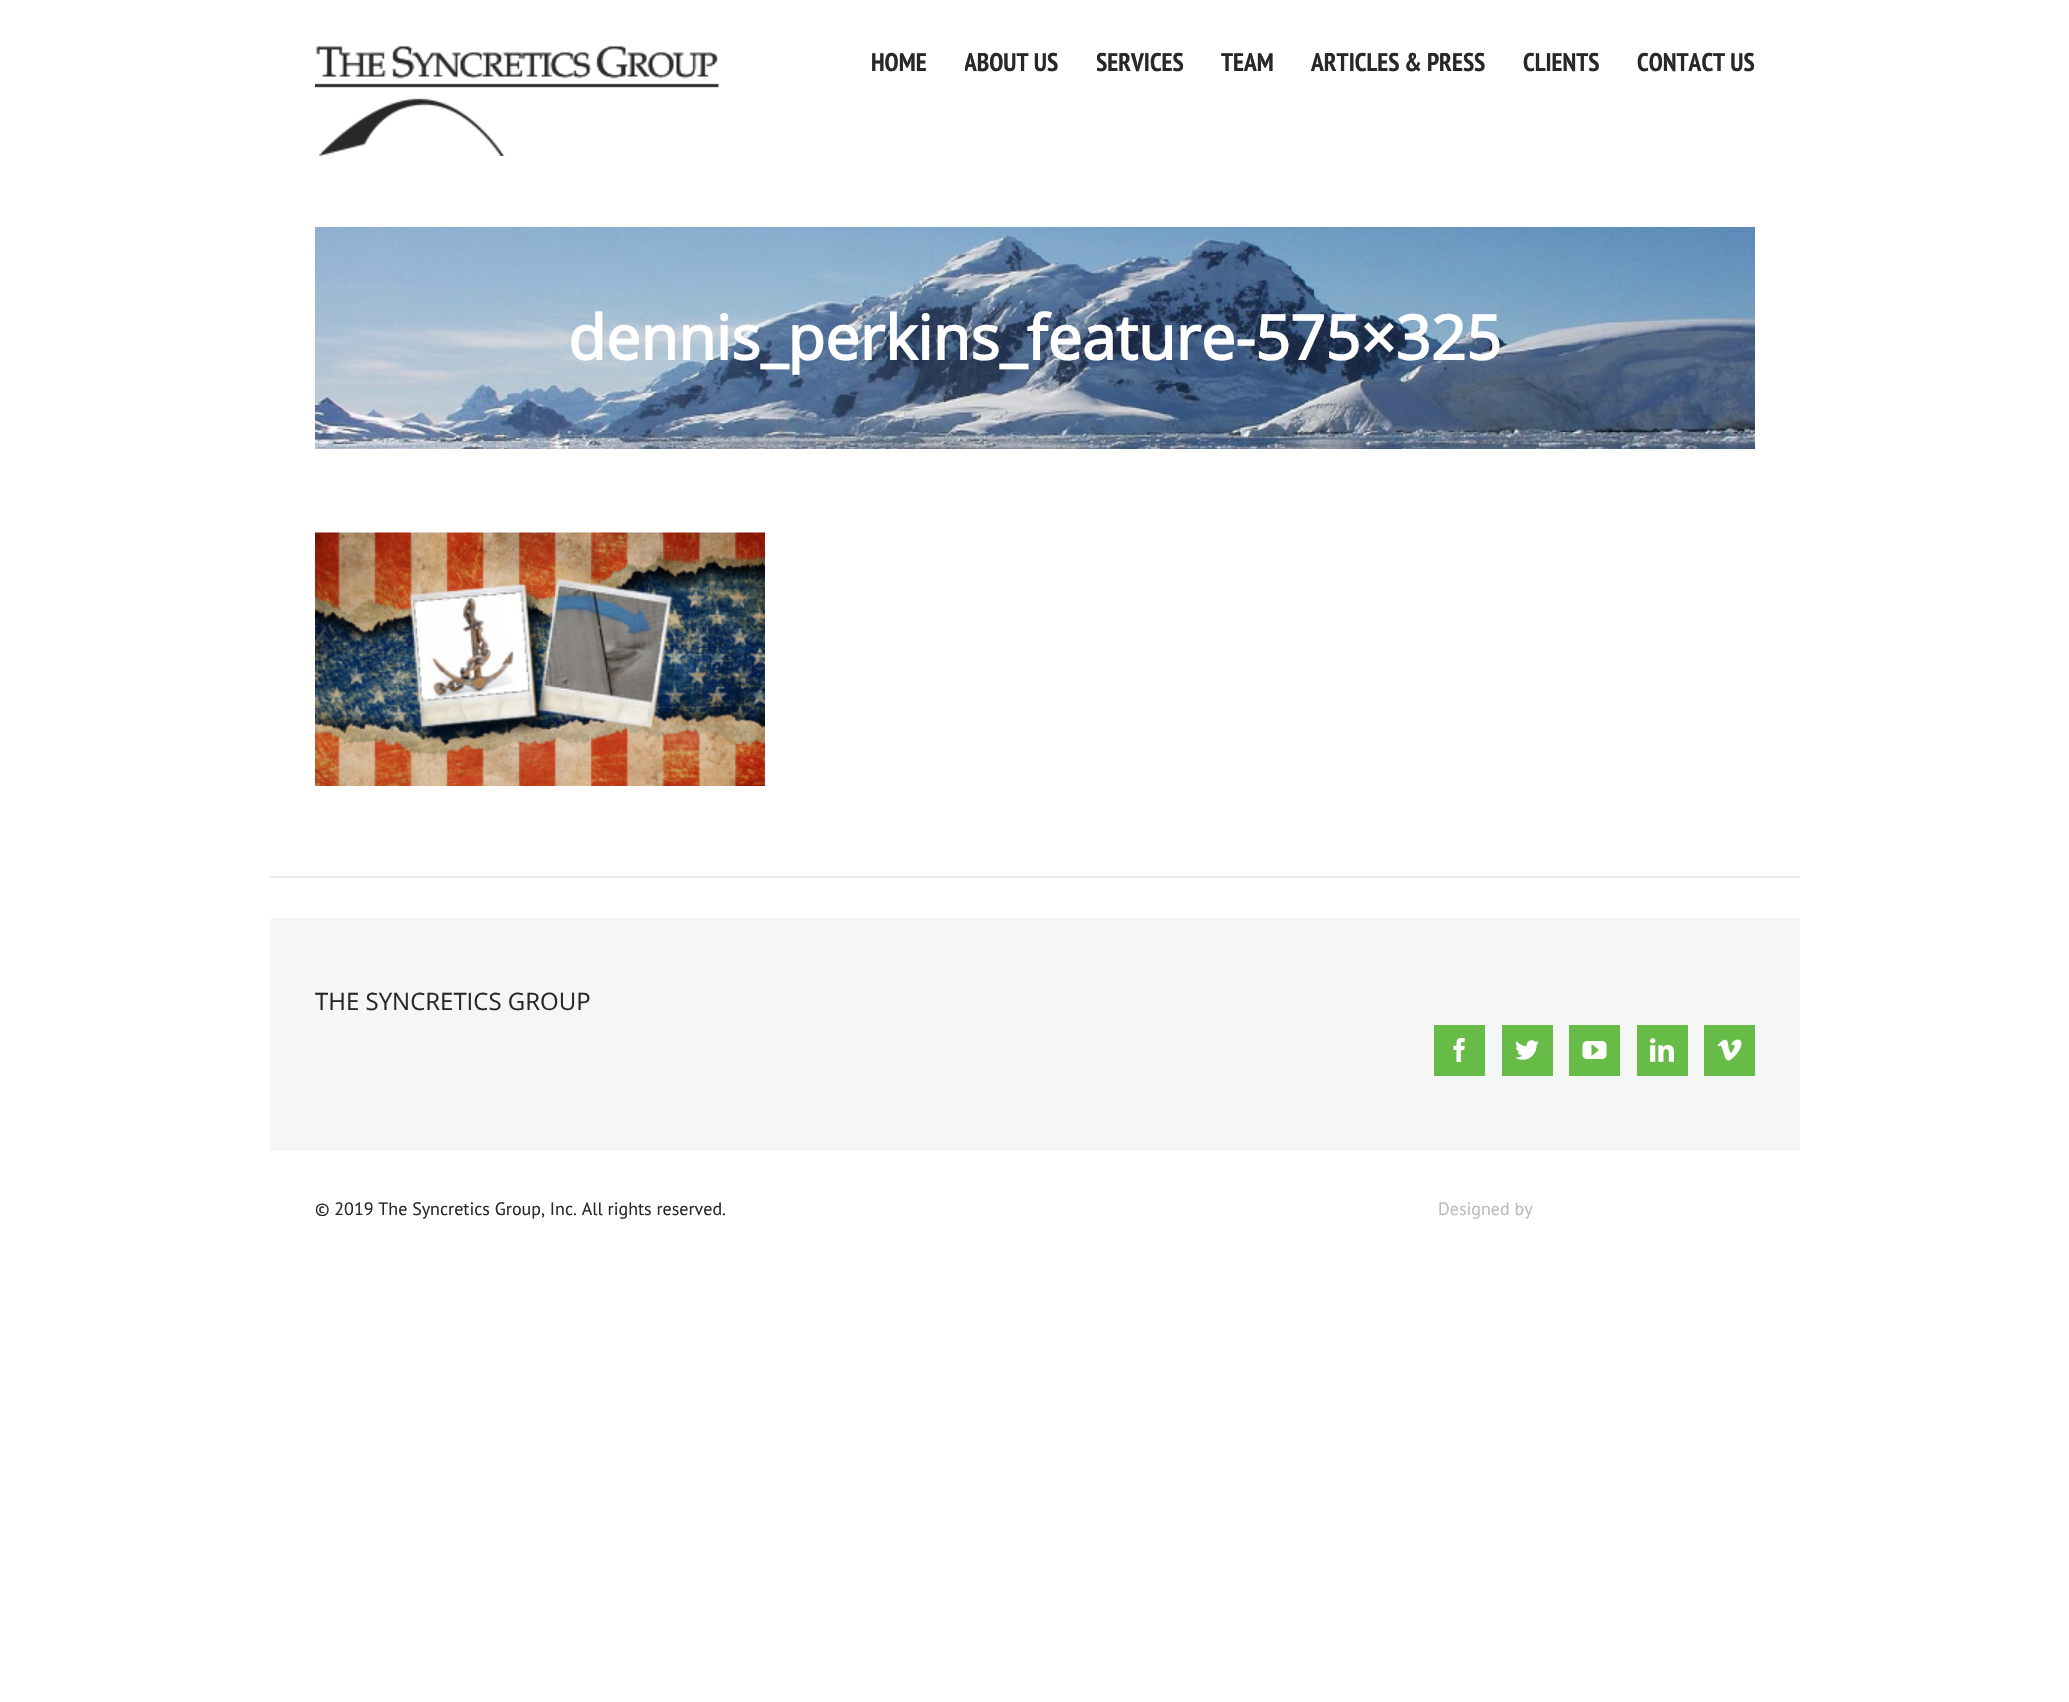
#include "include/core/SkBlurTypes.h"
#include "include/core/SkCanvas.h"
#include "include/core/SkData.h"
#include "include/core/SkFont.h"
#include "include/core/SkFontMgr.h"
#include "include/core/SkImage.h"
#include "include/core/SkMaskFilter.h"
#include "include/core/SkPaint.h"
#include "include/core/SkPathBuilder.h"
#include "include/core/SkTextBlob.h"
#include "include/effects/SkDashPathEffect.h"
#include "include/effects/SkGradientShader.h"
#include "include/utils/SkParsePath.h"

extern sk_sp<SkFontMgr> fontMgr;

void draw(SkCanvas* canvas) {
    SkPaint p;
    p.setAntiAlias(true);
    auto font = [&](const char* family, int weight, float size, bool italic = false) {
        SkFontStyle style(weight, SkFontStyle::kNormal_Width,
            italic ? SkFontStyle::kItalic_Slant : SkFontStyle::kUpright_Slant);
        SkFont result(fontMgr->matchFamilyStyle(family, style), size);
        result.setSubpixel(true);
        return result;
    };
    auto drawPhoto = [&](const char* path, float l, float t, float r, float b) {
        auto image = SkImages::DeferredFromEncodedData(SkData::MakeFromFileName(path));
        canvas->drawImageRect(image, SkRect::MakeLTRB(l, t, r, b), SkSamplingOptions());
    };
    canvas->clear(0xFFFFFFFF);
    drawPhoto("media/1.png", 315, 46, 719, 156);
    auto font1 = font("PT Sans Narrow", 700, 25.5f);
    p.setColor(0xFF282827);
    canvas->drawString("HOME", 871, 71, font1, p);
    canvas->save();
    canvas->clipRect(SkRect::MakeLTRB(965, 35, 1097, 87));
    canvas->drawString("ABOUT US", 964, 71, font1, p);
    canvas->restore();
    canvas->save();
    canvas->clipRect(SkRect::MakeLTRB(1097, 35, 1221, 87));
    canvas->drawString("SERVICES", 1096, 71, font1, p);
    canvas->restore();
    {
        const struct { const char* s; float x, y; } items[] = {
            {"TEAM", 1221, 71},
            {"ARTICLES & PRESS", 1311, 71},
            {"CLIENTS", 1523, 71},
            {"CONTACT US", 1637, 71},
        };
        for (auto [s, x, y] : items) {
            canvas->drawString(s, x, y, font1, p);
        }
    }
    drawPhoto("media/2.png", 315, 227, 1755, 449);
    auto font2 = font("Open Sans", 700, 61.5f);
    p.setColor(0xFFFFFFFF);
    canvas->drawString("dennis_perkins_feature-575×325", 568, 360, font2, p);
    p.setColor(0xFFE9EAE9);
    canvas->drawRect(SkRect::MakeLTRB(270, 876, 1800, 878), p);
    drawPhoto("media/3.png", 315, 532, 765, 786);
    p.setColor(0xFFF5F6F6);
    canvas->drawRect(SkRect::MakeLTRB(270, 918, 1800, 1151), p);
    auto font3 = font("Open Sans", 400, 24);
    p.setColor(0xFF282827);
    canvas->drawString("THE SYNCRETICS GROUP", 315, 1010, font3, p);
    p.setColor(0xFF66BC46);
    canvas->drawRect(SkRect::MakeLTRB(1434, 1025, 1485, 1076), p);
    drawPhoto("media/4.png", 1453, 1038, 1465, 1062);
    canvas->drawRect(SkRect::MakeLTRB(1502, 1025, 1553, 1076), p);
    drawPhoto("media/5.png", 1515, 1040, 1539, 1060);
    canvas->drawRect(SkRect::MakeLTRB(1569, 1025, 1620, 1076), p);
    drawPhoto("media/6.png", 1582, 1041, 1607, 1059);
    canvas->drawRect(SkRect::MakeLTRB(1637, 1025, 1688, 1076), p);
    drawPhoto("media/7.png", 1650, 1038, 1674, 1062);
    canvas->drawRect(SkRect::MakeLTRB(1704, 1025, 1755, 1076), p);
    drawPhoto("media/8.png", 1717, 1039, 1742, 1061);
    auto font4 = font("PT Sans", 400, 18);
    p.setColor(0xFF282827);
    canvas->drawString("© 2019 The Syncretics Group, Inc. All rights reserved.", 315, 1215, font4, p);
    p.setColor(0xFFBBBBBB);
    canvas->drawString("Designed by", 1438, 1215, font4, p);
}
